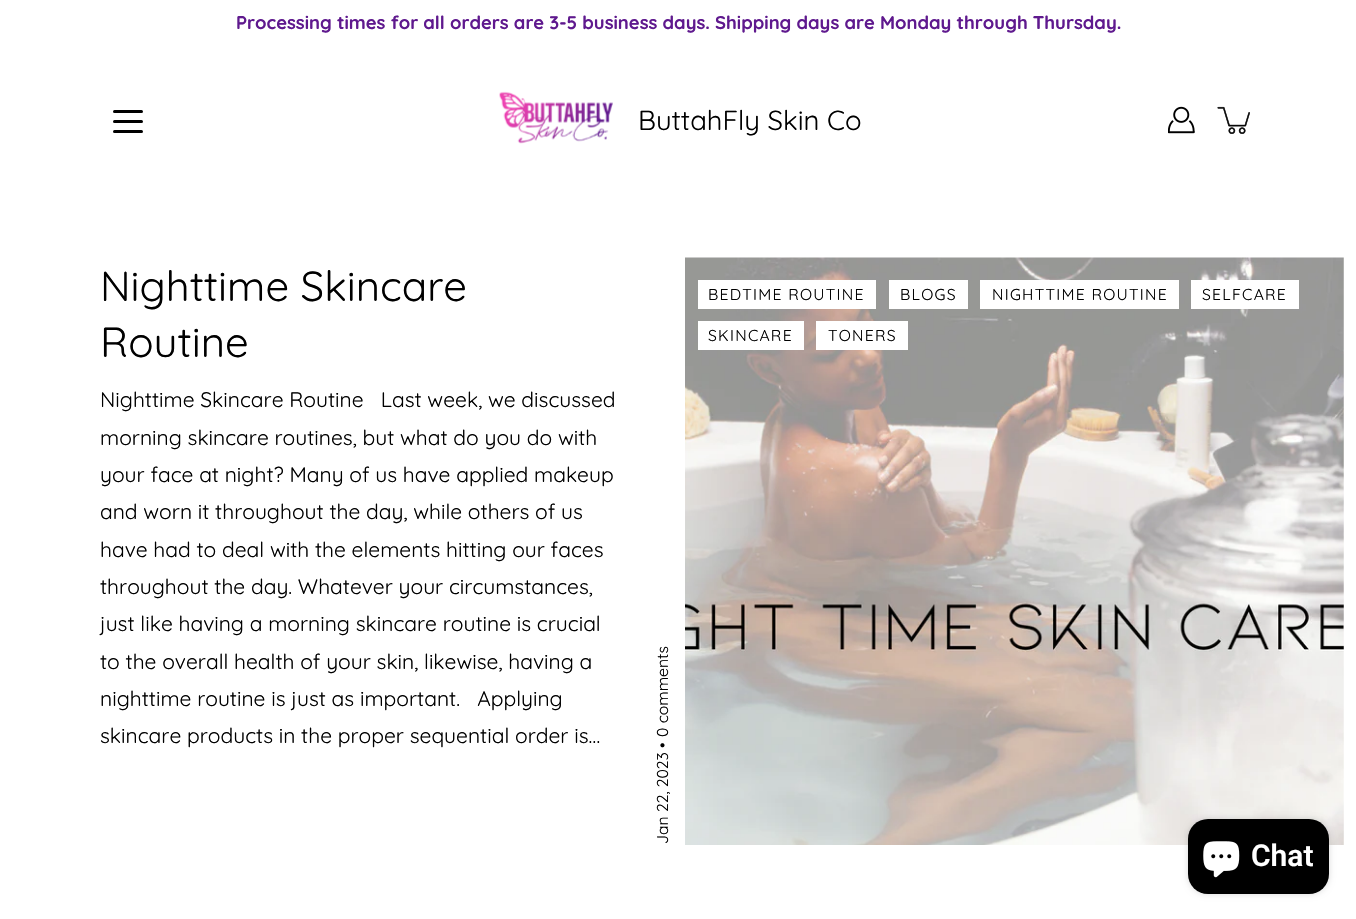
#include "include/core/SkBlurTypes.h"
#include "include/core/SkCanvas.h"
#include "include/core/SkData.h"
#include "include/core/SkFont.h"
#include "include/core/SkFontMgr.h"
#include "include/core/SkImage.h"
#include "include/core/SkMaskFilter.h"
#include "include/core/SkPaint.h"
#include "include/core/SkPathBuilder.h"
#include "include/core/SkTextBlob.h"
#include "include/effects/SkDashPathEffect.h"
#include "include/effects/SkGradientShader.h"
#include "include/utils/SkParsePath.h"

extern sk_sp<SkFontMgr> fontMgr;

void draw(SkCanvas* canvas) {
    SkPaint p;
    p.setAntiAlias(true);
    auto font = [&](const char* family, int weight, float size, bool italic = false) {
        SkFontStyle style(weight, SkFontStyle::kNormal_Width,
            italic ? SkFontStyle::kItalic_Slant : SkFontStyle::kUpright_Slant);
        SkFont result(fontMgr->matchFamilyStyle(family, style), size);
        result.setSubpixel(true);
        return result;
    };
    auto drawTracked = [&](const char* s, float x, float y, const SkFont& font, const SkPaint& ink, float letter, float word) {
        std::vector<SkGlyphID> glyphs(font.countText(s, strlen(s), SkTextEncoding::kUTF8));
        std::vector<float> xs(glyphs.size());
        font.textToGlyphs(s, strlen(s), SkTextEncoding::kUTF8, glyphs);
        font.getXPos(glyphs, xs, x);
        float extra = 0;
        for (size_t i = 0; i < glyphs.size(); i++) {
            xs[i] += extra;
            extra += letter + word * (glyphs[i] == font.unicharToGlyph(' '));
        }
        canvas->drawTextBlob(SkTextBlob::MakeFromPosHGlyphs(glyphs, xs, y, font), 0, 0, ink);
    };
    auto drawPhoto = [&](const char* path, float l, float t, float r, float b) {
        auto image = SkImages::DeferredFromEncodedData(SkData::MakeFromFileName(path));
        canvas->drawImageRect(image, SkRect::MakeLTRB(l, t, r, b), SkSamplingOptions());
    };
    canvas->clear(0xFFFFFFFF);
    auto font1 = font("Quicksand", 700, 18.4f);
    p.setColor(0xFF5F198E);
    canvas->drawString("Processing times for all orders are 3-5 business days. Shipping days are Monday through Thursday.", 236, 29, font1, p);
    p.setColor(0xFF000000);
    canvas->drawRoundRect(SkRect::MakeLTRB(113, 120, 143, 123), 1.5f, 1.5f, p);
    canvas->drawRoundRect(SkRect::MakeLTRB(113, 110, 143, 113), 1.5f, 1.5f, p);
    canvas->drawRoundRect(SkRect::MakeLTRB(113, 130, 143, 133), 1.5f, 1.5f, p);
    drawPhoto("media/1.png", 1168, 106, 1195, 134);
    drawPhoto("media/2.png", 1217, 106, 1250, 134);
    drawPhoto("media/3.png", 499, 91, 613, 144);
    auto font2 = font("Quicksand", 400, 27.5f);
    canvas->drawString("ButtahFly Skin Co", 638, 130, font2, p);
    auto font3 = font("Quicksand", 400, 42);
    canvas->drawString("Nighttime Skincare", 100, 301, font3, p);
    canvas->drawString("Routine", 100, 357, font3, p);
    auto font4 = font("Quicksand", 400, 21);
    {
        const struct { const char* s; float x, y; } items[] = {
            {"Nighttime Skincare Routine   Last week, we discussed", 100, 407},
            {"morning skincare routines, but what do you do with", 100, 445},
            {"your face at night? Many of us have applied makeup", 100, 482},
            {"and worn it throughout the day, while others of us", 100, 519},
            {"have had to deal with the elements hitting our faces", 100, 557},
            {"throughout the day. Whatever your circumstances,", 100, 594},
            {"just like having a morning skincare routine is crucial", 100, 631},
            {"to the overall health of your skin, likewise, having a", 100, 669},
            {"nighttime routine is just as important.   Applying", 100, 706},
            {"skincare products in the proper sequential order is…", 100, 743},
        };
        for (auto [s, x, y] : items) {
            canvas->drawString(s, x, y, font4, p);
        }
    }
    drawPhoto("media/4.png", 685, 257, 1344, 845);
    p.setColor(0xFFFFFFFF);
    canvas->drawRect(SkRect::MakeLTRB(698, 280, 876, 309), p);
    auto font5 = font("Quicksand", 400, 15.75f);
    p.setColor(0xFF000000);
    drawTracked("BEDTIME ROUTINE", 708, 300, font5, p, 1.25f, 0);
    p.setColor(0xFFFFFFFF);
    canvas->drawRect(SkRect::MakeLTRB(889, 280, 968, 309), p);
    p.setColor(0xFF000000);
    drawTracked("BLOGS", 900, 300, font5, p, 1.25f, 0);
    p.setColor(0xFFFFFFFF);
    canvas->drawRect(SkRect::MakeLTRB(980, 280, 1179, 309), p);
    p.setColor(0xFF000000);
    drawTracked("NIGHTTIME ROUTINE", 992, 300, font5, p, 1.25f, 0);
    p.setColor(0xFFFFFFFF);
    canvas->drawRect(SkRect::MakeLTRB(1191, 280, 1299, 309), p);
    p.setColor(0xFF000000);
    drawTracked("SELFCARE", 1202, 300, font5, p, 1.25f, 0);
    p.setColor(0xFFFFFFFF);
    canvas->drawRect(SkRect::MakeLTRB(698, 321, 804, 350), p);
    p.setColor(0xFF000000);
    drawTracked("SKINCARE", 708, 341, font5, p, 1.25f, 0);
    p.setColor(0xFFFFFFFF);
    canvas->drawRect(SkRect::MakeLTRB(816, 321, 908, 350), p);
    p.setColor(0xFF000000);
    drawTracked("TONERS", 828, 341, font5, p, 1.25f, 0);
    canvas->save();
    canvas->rotate(-90, 668, 737);
    canvas->drawString("0 comments", 668, 737, font5, p);
    canvas->restore();
    canvas->save();
    canvas->rotate(-90, 668, 748);
    canvas->drawString("•", 668, 748, font5, p);
    canvas->restore();
    canvas->save();
    canvas->rotate(-90, 668, 844);
    canvas->drawString("Jan 22, 2023", 668, 844, font5, p);
    canvas->restore();
    p.setColor(0x26000000);
    p.setMaskFilter(SkMaskFilter::MakeBlur(kNormal_SkBlurStyle, 3));
    canvas->drawRoundRect(SkRect::MakeLTRB(1188, 819, 1329, 894), 20, 20, p);
    p.setMaskFilter(nullptr);
    p.setColor(0xFF000000);
    canvas->drawRoundRect(SkRect::MakeLTRB(1188, 819, 1329, 894), 20, 20, p);
    drawPhoto("media/5.png", 1203, 841, 1240, 878);
    auto font6 = font("Roboto", 600, 30);
    p.setColor(0xFFFFFFFF);
    canvas->drawString("Chat", 1251, 866, font6, p);
}
